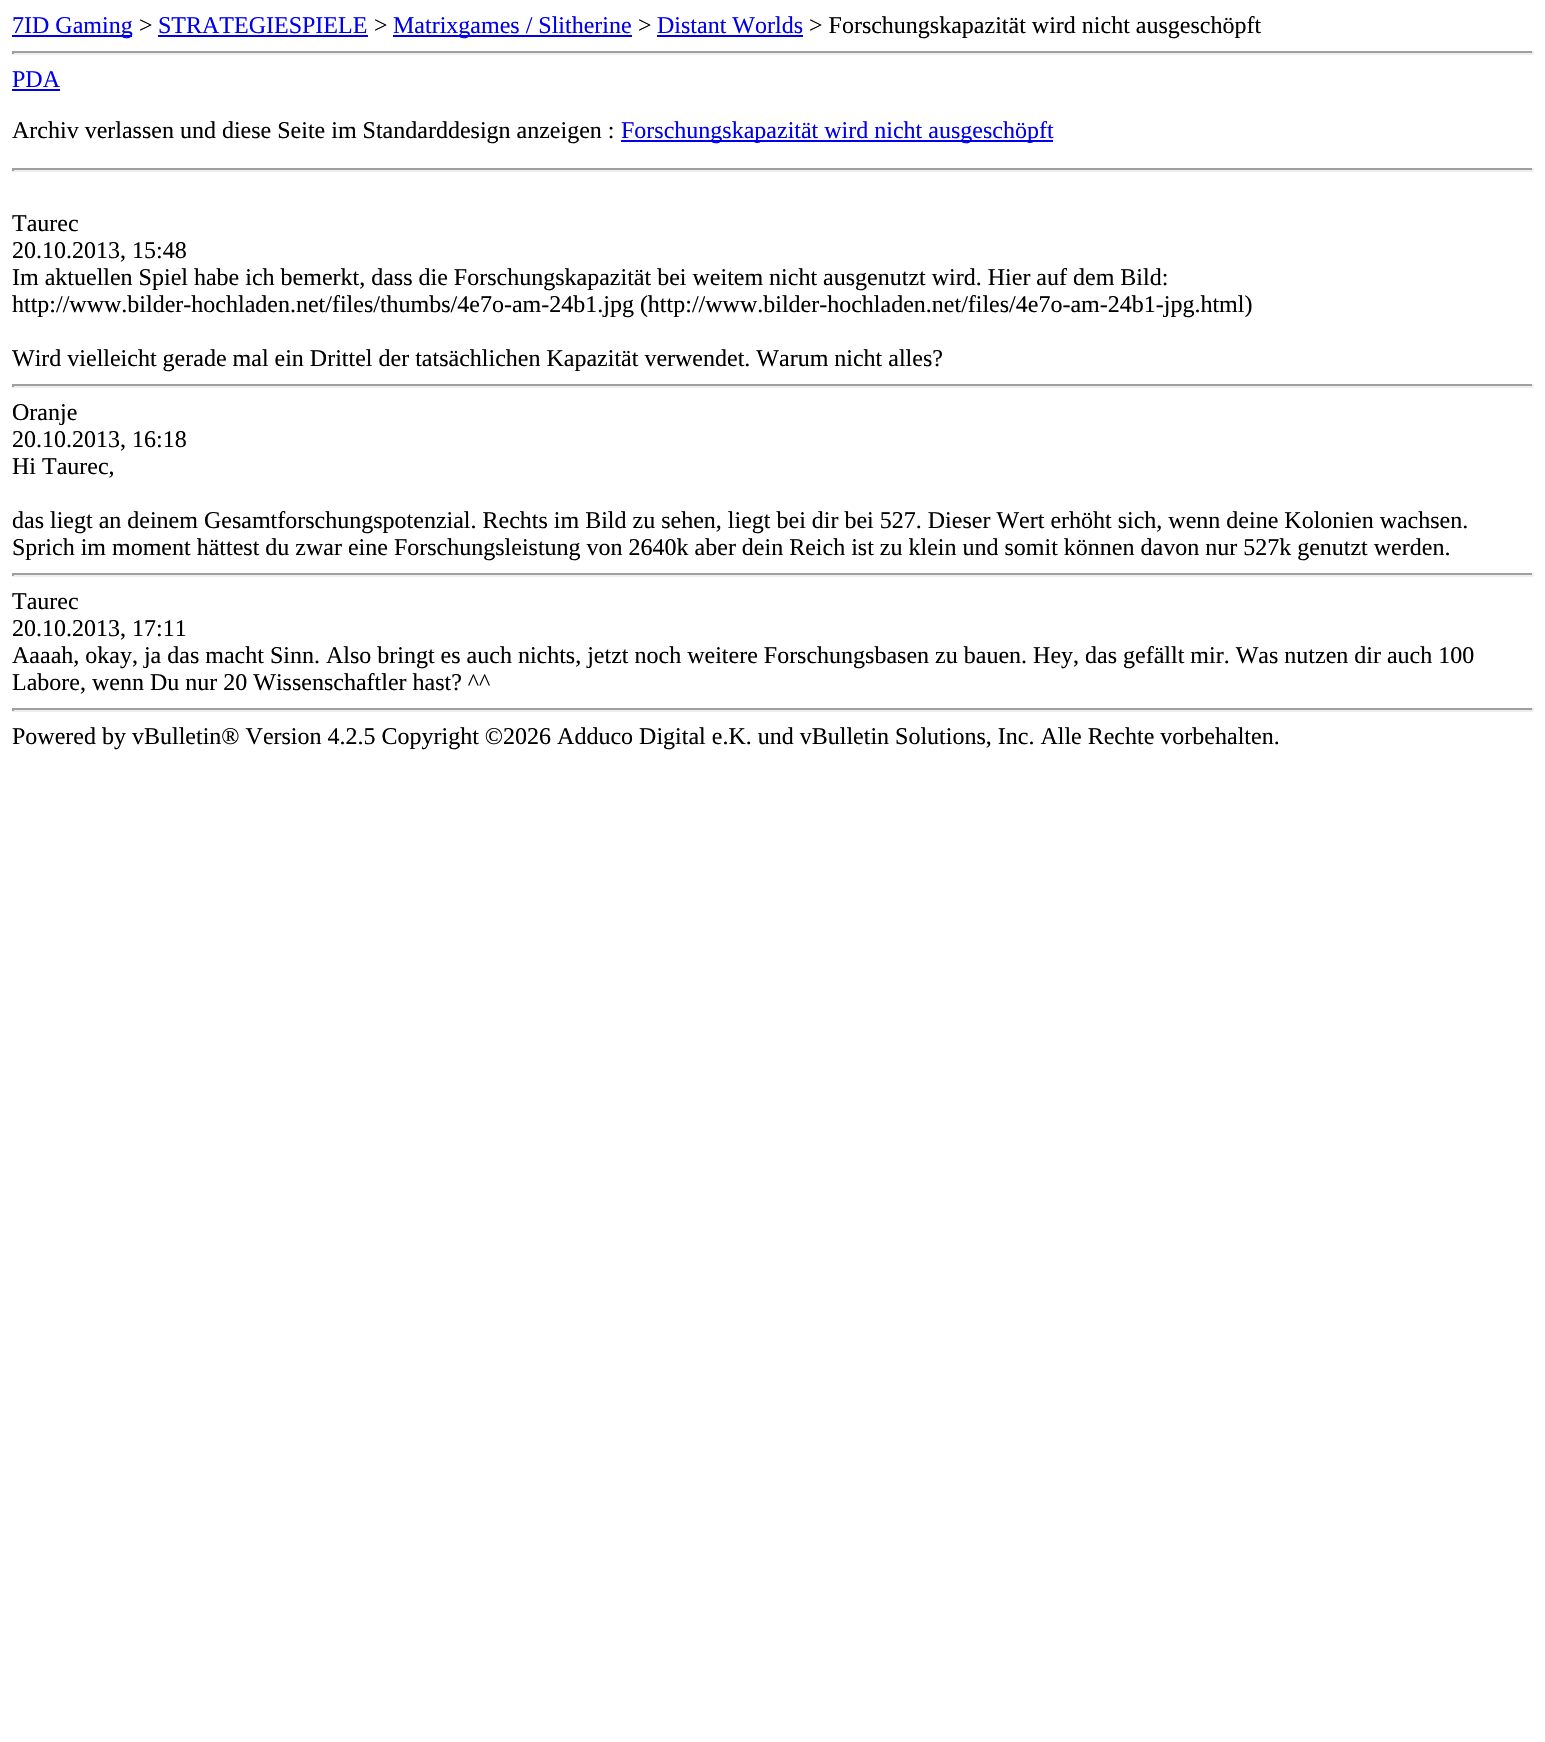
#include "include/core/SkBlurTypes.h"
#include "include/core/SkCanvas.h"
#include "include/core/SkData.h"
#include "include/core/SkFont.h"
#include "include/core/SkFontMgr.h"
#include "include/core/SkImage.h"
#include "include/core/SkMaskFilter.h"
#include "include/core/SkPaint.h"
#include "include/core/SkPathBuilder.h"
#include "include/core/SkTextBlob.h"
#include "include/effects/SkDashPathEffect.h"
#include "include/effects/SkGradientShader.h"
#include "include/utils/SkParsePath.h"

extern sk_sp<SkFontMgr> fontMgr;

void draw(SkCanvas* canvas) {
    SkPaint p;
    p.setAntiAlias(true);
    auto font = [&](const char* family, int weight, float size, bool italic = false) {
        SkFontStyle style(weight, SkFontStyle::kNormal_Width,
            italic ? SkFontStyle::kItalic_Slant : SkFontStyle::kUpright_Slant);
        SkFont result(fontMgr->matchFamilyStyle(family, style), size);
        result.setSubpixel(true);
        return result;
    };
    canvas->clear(0xFFFFFFFF);
    p.setColor(0xFF0000EE);
    canvas->drawRect(SkRect::MakeLTRB(12, 35, 132, 37), p);
    auto font1 = font("Liberation Serif", 400, 24);
    canvas->drawString("7ID Gaming", 12, 33, font1, p);
    p.setColor(0xFF000000);
    canvas->drawString(">", 139, 33, font1, p);
    p.setColor(0xFF0000EE);
    canvas->drawString("STRATEGIESPIELE", 158, 33, font1, p);
    canvas->drawRect(SkRect::MakeLTRB(158, 35, 368, 37), p);
    p.setColor(0xFF000000);
    canvas->drawString(">", 374, 33, font1, p);
    p.setColor(0xFF0000EE);
    canvas->drawRect(SkRect::MakeLTRB(393, 35, 632, 37), p);
    canvas->drawString("Matrixgames / Slitherine", 393, 33, font1, p);
    p.setColor(0xFF000000);
    canvas->drawString(">", 638, 33, font1, p);
    p.setColor(0xFF0000EE);
    canvas->drawString("Distant Worlds", 657, 33, font1, p);
    canvas->drawRect(SkRect::MakeLTRB(657, 35, 803, 37), p);
    p.setColor(0xFF000000);
    canvas->drawString("> Forschungskapazität wird nicht ausgeschöpft", 809, 33, font1, p);
    {
        const struct { float l, t, r, b; SkColor color; } items[] = {
            {12, 51, 1533, 53, 0xFF9F9F9F},
            {1532, 51, 1534, 54, 0xFFEEEEEE},
            {12, 53, 1533, 55, 0xFFEEEEEE},
            {12, 51, 14, 54, 0xFF9F9F9F},
        };
        for (auto [l, t, r, b, color] : items) {
            p.setColor(color);
            canvas->drawRect(SkRect::MakeLTRB(l, t, r, b), p);
        }
    }
    p.setColor(0xFF0000EE);
    canvas->drawString("PDA", 12, 87, font1, p);
    canvas->drawRect(SkRect::MakeLTRB(12, 89, 60, 91), p);
    p.setColor(0xFF000000);
    canvas->drawString("Archiv verlassen und diese Seite im Standarddesign anzeigen :", 12, 138, font1, p);
    p.setColor(0xFF0000EE);
    canvas->drawRect(SkRect::MakeLTRB(621, 140, 1053, 142), p);
    canvas->drawString("Forschungskapazität wird nicht ausgeschöpft", 621, 138, font1, p);
    {
        const struct { float l, t, r, b; SkColor color; } items[] = {
            {12, 168, 1533, 170, 0xFF9F9F9F},
            {1532, 168, 1534, 171, 0xFFEEEEEE},
            {12, 170, 1533, 172, 0xFFEEEEEE},
            {12, 168, 14, 171, 0xFF9F9F9F},
        };
        for (auto [l, t, r, b, color] : items) {
            p.setColor(color);
            canvas->drawRect(SkRect::MakeLTRB(l, t, r, b), p);
        }
    }
    p.setColor(0xFF000000);
    {
        const struct { const char* s; float x, y; } items[] = {
            {"Taurec", 12, 231},
            {"20.10.2013, 15:48", 12, 258},
            {"Im aktuellen Spiel habe ich bemerkt, dass die Forschungskapazität bei weitem nicht ausgenutzt wird. Hier auf dem Bild:", 12, 285},
            {"http://www.bilder-hochladen.net/files/thumbs/4e7o-am-24b1.jpg (http://www.bilder-hochladen.net/files/4e7o-am-24b1-jpg.html)", 12, 312},
            {"Wird vielleicht gerade mal ein Drittel der tatsächlichen Kapazität verwendet. Warum nicht alles?", 12, 366},
        };
        for (auto [s, x, y] : items) {
            canvas->drawString(s, x, y, font1, p);
        }
    }
    {
        const struct { float l, t, r, b; SkColor color; } items[] = {
            {12, 384, 1533, 386, 0xFF9F9F9F},
            {1532, 384, 1534, 387, 0xFFEEEEEE},
            {12, 386, 1533, 388, 0xFFEEEEEE},
            {12, 384, 14, 387, 0xFF9F9F9F},
        };
        for (auto [l, t, r, b, color] : items) {
            p.setColor(color);
            canvas->drawRect(SkRect::MakeLTRB(l, t, r, b), p);
        }
    }
    p.setColor(0xFF000000);
    {
        const struct { const char* s; float x, y; } items[] = {
            {"Oranje", 12, 420},
            {"20.10.2013, 16:18", 12, 447},
            {"Hi Taurec,", 12, 474},
            {"das liegt an deinem Gesamtforschungspotenzial. Rechts im Bild zu sehen, liegt bei dir bei 527. Dieser Wert erhöht sich, wenn deine Kolonien wachsen.", 12, 528},
            {"Sprich im moment hättest du zwar eine Forschungsleistung von 2640k aber dein Reich ist zu klein und somit können davon nur 527k genutzt werden.", 12, 555},
        };
        for (auto [s, x, y] : items) {
            canvas->drawString(s, x, y, font1, p);
        }
    }
    {
        const struct { float l, t, r, b; SkColor color; } items[] = {
            {12, 573, 1533, 575, 0xFF9F9F9F},
            {1532, 573, 1534, 576, 0xFFEEEEEE},
            {12, 575, 1533, 577, 0xFFEEEEEE},
            {12, 573, 14, 576, 0xFF9F9F9F},
        };
        for (auto [l, t, r, b, color] : items) {
            p.setColor(color);
            canvas->drawRect(SkRect::MakeLTRB(l, t, r, b), p);
        }
    }
    p.setColor(0xFF000000);
    {
        const struct { const char* s; float x, y; } items[] = {
            {"Taurec", 12, 609},
            {"20.10.2013, 17:11", 12, 636},
            {"Aaaah, okay, ja das macht Sinn. Also bringt es auch nichts, jetzt noch weitere Forschungsbasen zu bauen. Hey, das gefällt mir. Was nutzen dir auch 100", 12, 663},
            {"Labore, wenn Du nur 20 Wissenschaftler hast? ^^", 12, 690},
        };
        for (auto [s, x, y] : items) {
            canvas->drawString(s, x, y, font1, p);
        }
    }
    {
        const struct { float l, t, r, b; SkColor color; } items[] = {
            {12, 708, 1533, 710, 0xFF9F9F9F},
            {1532, 708, 1534, 711, 0xFFEEEEEE},
            {12, 710, 1533, 712, 0xFFEEEEEE},
            {12, 708, 14, 711, 0xFF9F9F9F},
        };
        for (auto [l, t, r, b, color] : items) {
            p.setColor(color);
            canvas->drawRect(SkRect::MakeLTRB(l, t, r, b), p);
        }
    }
    p.setColor(0xFF000000);
    canvas->drawString("Powered by vBulletin® Version 4.2.5 Copyright ©2026 Adduco Digital e.K. und vBulletin Solutions, Inc. Alle Rechte vorbehalten.", 12, 744, font1, p);
}
